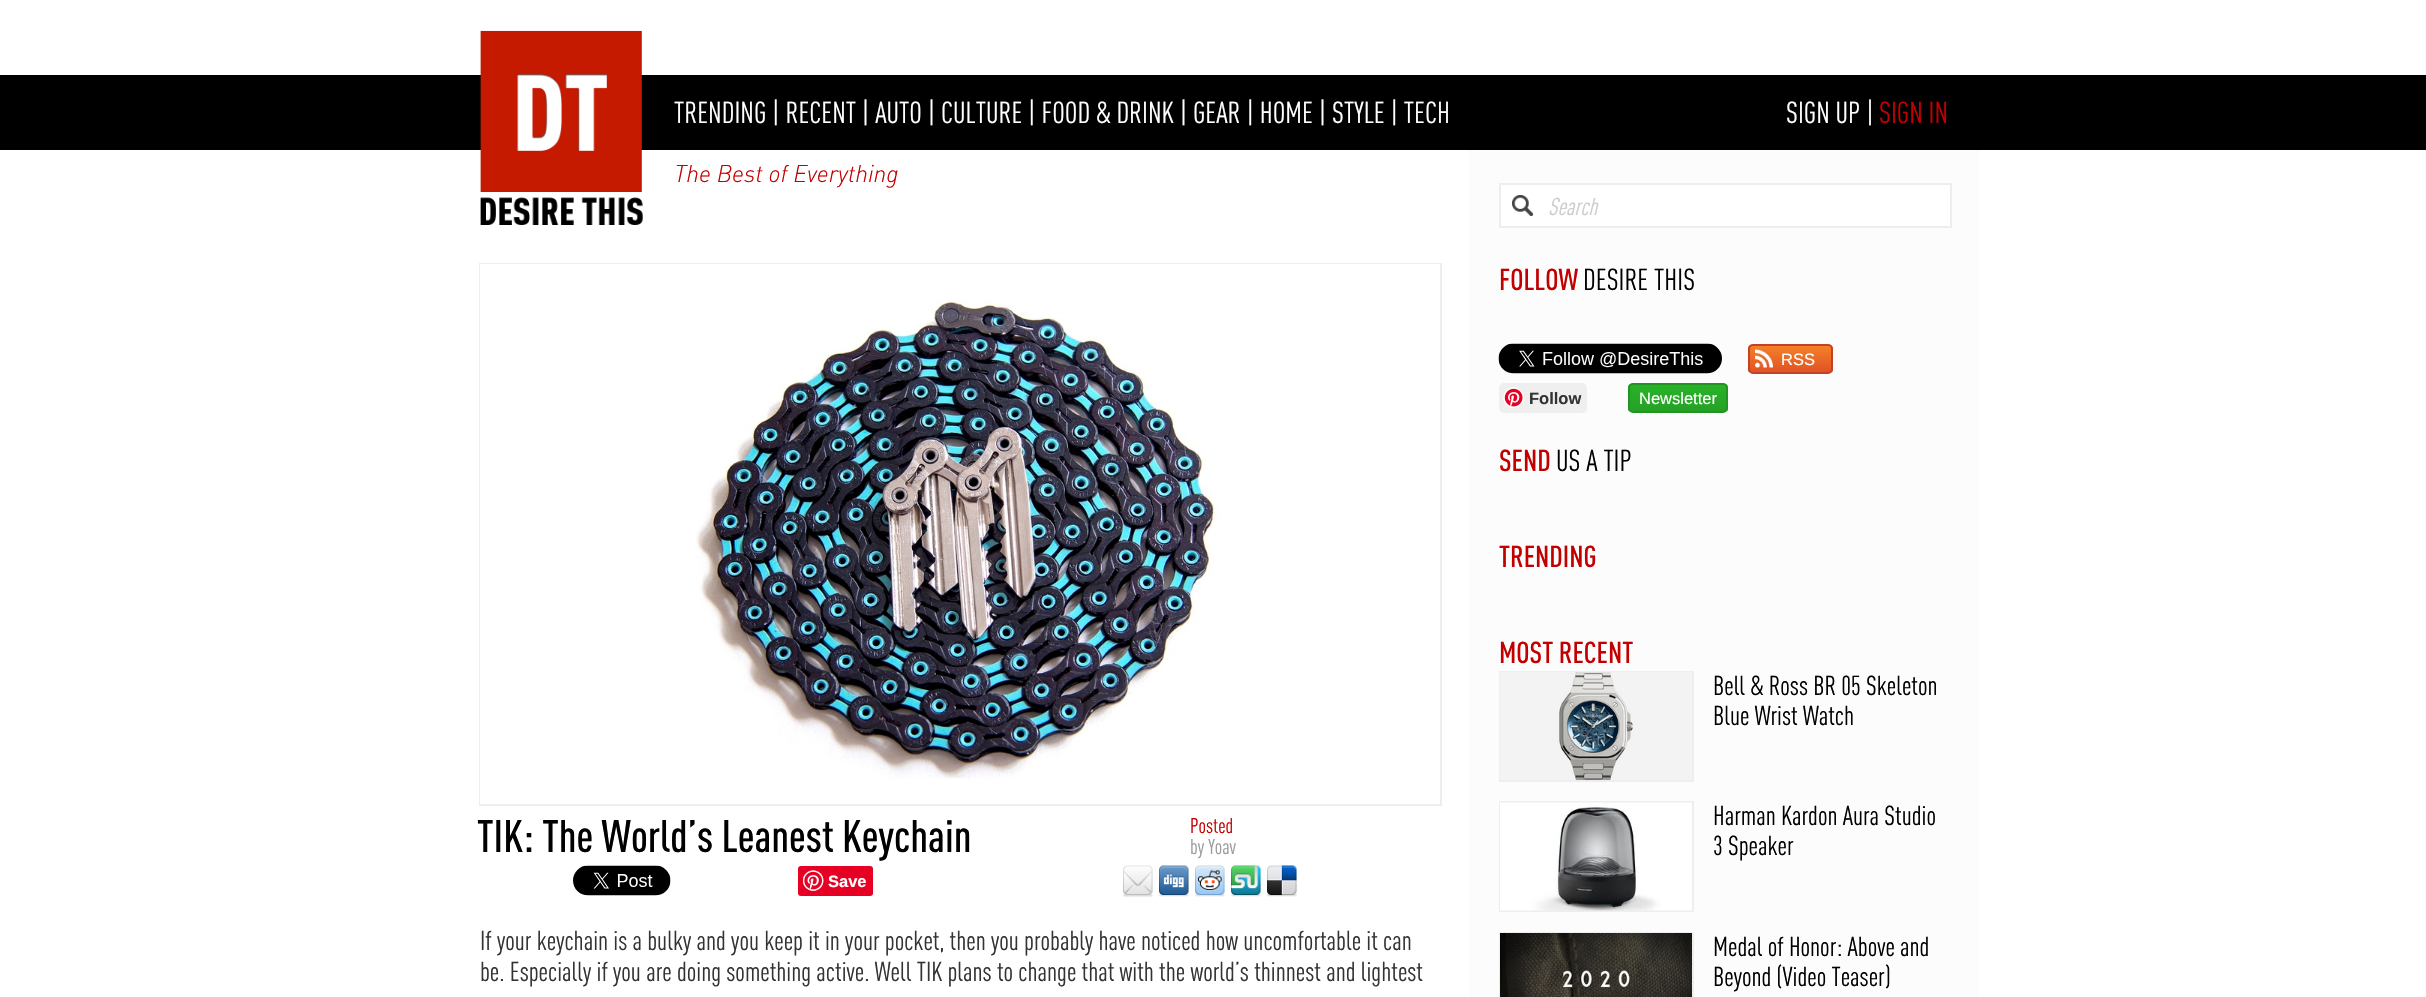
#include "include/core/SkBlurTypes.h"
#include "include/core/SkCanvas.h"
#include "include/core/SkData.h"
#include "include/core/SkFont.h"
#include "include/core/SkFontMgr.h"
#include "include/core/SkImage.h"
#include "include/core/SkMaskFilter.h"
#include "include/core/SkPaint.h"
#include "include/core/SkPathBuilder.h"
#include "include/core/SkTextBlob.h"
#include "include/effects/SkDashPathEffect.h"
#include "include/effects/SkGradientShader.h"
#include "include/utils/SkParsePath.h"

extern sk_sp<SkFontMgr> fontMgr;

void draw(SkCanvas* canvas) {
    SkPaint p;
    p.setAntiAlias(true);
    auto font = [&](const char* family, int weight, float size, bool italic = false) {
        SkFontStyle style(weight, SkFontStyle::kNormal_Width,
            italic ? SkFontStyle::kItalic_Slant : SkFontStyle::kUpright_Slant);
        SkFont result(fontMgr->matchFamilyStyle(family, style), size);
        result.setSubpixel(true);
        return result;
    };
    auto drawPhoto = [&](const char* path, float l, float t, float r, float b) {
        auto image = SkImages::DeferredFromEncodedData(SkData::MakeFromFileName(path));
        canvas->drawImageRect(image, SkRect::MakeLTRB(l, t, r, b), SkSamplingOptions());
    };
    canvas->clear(0xFFFFFFFF);
    p.setColor(0xFF000000);
    canvas->drawRect(SkRect::MakeLTRB(0, 75, 2426, 150), p);
    drawPhoto("media/1.png", 480, 30, 643, 225);
    auto font1 = font("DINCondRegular", 400, 30);
    p.setColor(0xFFFFFFFF);
    canvas->drawString("TRENDING | RECENT | AUTO | CULTURE | FOOD & DRINK | GEAR | HOME | STYLE | TECH", 674, 123, font1, p);
    canvas->drawString("SIGN UP |", 1786, 123, font1, p);
    p.setColor(0xFFC30000);
    canvas->drawString("SIGN IN", 1879, 123, font1, p);
    auto font2 = font("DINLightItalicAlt", 300, 24, true);
    canvas->drawString("The Best of Everything", 674, 182, font2, p);
    p.setColor(0xFFFCFCFC);
    canvas->drawRect(SkRect::MakeLTRB(1469, 150, 1979, 997), p);
    p.setStyle(SkPaint::kStroke_Style);
    p.setStrokeWidth(2);
    p.setColor(0xFFEEEEEE);
    canvas->drawRect(SkRect::MakeLTRB(480, 264, 1441, 805), p);
    drawPhoto("media/2.png", 480, 264, 1440, 804);
    auto font3 = font("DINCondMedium", 500, 45);
    p.setStyle(SkPaint::kFill_Style);
    p.setColor(0xFF000000);
    canvas->drawString("TIK: The World’s Leanest Keychain", 477, 852, font3, p);
    auto font4 = font("DINCondRegular", 400, 21);
    p.setColor(0xFFC30000);
    canvas->drawString("Posted", 1190, 833, font4, p);
    p.setColor(0xFF999999);
    canvas->drawString("by Yoav", 1190, 854, font4, p);
    drawPhoto("media/3.png", 573, 865, 671, 896);
    p.setColor(0xFFE60023);
    canvas->drawRoundRect(SkRect::MakeLTRB(798, 866, 873, 896), 3, 3, p);
    drawPhoto("media/4.png", 803, 870, 824, 891);
    auto font5 = font("Liberation Sans", 700, 16.5f);
    p.setColor(0xFFFFFFFF);
    canvas->drawString("Save", 828, 887, font5, p);
    drawPhoto("media/5.png", 1123, 865, 1153, 897);
    drawPhoto("media/6.png", 1159, 865, 1189, 897);
    drawPhoto("media/7.png", 1195, 865, 1225, 897);
    drawPhoto("media/8.png", 1231, 865, 1261, 897);
    drawPhoto("media/9.png", 1266, 865, 1297, 897);
    auto font6 = font("DINCondRegular", 400, 27);
    p.setColor(0xFF333333);
    canvas->drawString("If your keychain is a bulky and you keep it in your pocket, then you probably have noticed how uncomfortable it can", 480, 950, font6, p);
    canvas->drawString("be. Especially if you are doing something active. Well TIK plans to change that with the world’s thinnest and lightest", 480, 981, font6, p);
    p.setColor(0xFFFFFFFF);
    canvas->drawRect(SkRect::MakeLTRB(1500, 184, 1951, 227), p);
    p.setStyle(SkPaint::kStroke_Style);
    p.setColor(0xFFEEEEEE);
    canvas->drawRect(SkRect::MakeLTRB(1500, 184, 1951, 227), p);
    drawPhoto("media/10.png", 1512, 195, 1533, 216);
    auto font7 = font("DINCondRegular", 400, 24, true);
    p.setStyle(SkPaint::kFill_Style);
    p.setColor(0xFFCCCCCC);
    canvas->drawString("Search", 1548, 215, font7, p);
    auto font8 = font("DINCondMedium", 500, 30);
    p.setColor(0xFFC30000);
    canvas->drawString("FOLLOW", 1499, 290, font8, p);
    p.setColor(0xFF000000);
    canvas->drawString("DESIRE THIS", 1583, 290, font1, p);
    drawPhoto("media/11.png", 1498, 343, 1722, 374);
    canvas->save();
    canvas->clipPath(SkPathBuilder().moveTo(1753, 344).lineTo(1828, 344).cubicTo(1831, 344, 1833, 346, 1833, 349).lineTo(1833, 369).cubicTo(1833, 372, 1831, 374, 1828, 374).lineTo(1753, 374).cubicTo(1750, 374, 1748, 372, 1748, 369).lineTo(1748, 349).cubicTo(1748, 346, 1750, 344, 1753, 344).close().detach(), true);
    {
        const SkColor colors[] = {0xFFF58227, 0xFFE05325};
        const float stops[] = {0, 1};
        const SkPoint ends[] = {{1749, 345}, {1749, 372}};
        p.setShader(SkGradientShader::MakeLinear(ends, colors, stops, 2, SkTileMode::kClamp));
        p.setAlpha(255);
    }
    canvas->drawRect(SkRect::MakeLTRB(1748, 345, 1833, 372), p);
    canvas->restore();
    p.setStyle(SkPaint::kStroke_Style);
    p.setShader(nullptr);
    p.setColor(0xFFC44027);
    canvas->drawRoundRect(SkRect::MakeLTRB(1749, 345, 1832, 373), 4, 4, p);
    drawPhoto("media/12.png", 1755, 349, 1773, 368);
    auto font9 = font("Liberation Sans", 400, 16.5f);
    p.setStyle(SkPaint::kFill_Style);
    p.setColor(0xFFFFFFFF);
    canvas->drawString("RSS", 1781, 365, font9, p);
    p.setColor(0xFFEFEFEF);
    canvas->drawRoundRect(SkRect::MakeLTRB(1499, 383, 1587, 413), 5, 5, p);
    drawPhoto("media/13.png", 1503, 387, 1524, 408);
    p.setColor(0xFF333333);
    canvas->drawString("Follow", 1529, 404, font5, p);
    canvas->save();
    canvas->clipPath(SkPathBuilder().moveTo(1633, 383).lineTo(1723, 383).cubicTo(1726, 383, 1728, 385, 1728, 388).lineTo(1728, 408).cubicTo(1728, 411, 1726, 413, 1723, 413).lineTo(1633, 413).cubicTo(1630, 413, 1628, 411, 1628, 408).lineTo(1628, 388).cubicTo(1628, 385, 1630, 383, 1633, 383).close().detach(), true);
    {
        const SkColor colors[] = {0xFF29B329, 0xFF25A125};
        const float stops[] = {0, 1};
        const SkPoint ends[] = {{1629, 384}, {1629, 411}};
        p.setShader(SkGradientShader::MakeLinear(ends, colors, stops, 2, SkTileMode::kClamp));
        p.setAlpha(255);
    }
    canvas->drawRect(SkRect::MakeLTRB(1628, 384, 1728, 411), p);
    canvas->restore();
    p.setStyle(SkPaint::kStroke_Style);
    p.setShader(nullptr);
    p.setColor(0xFF229422);
    canvas->drawRoundRect(SkRect::MakeLTRB(1629, 384, 1727, 412), 4, 4, p);
    p.setStyle(SkPaint::kFill_Style);
    p.setColor(0xFFFFFFFF);
    canvas->drawString("Newsletter", 1639, 404, font9, p);
    p.setColor(0xFFC30000);
    canvas->drawString("SEND", 1499, 471, font8, p);
    p.setColor(0xFF000000);
    canvas->drawString("US A TIP", 1556, 471, font1, p);
    p.setColor(0xFFC30000);
    canvas->drawString("TRENDING", 1499, 567, font8, p);
    canvas->drawString("MOST RECENT", 1499, 663, font8, p);
    p.setStyle(SkPaint::kStroke_Style);
    p.setColor(0xFFEEEEEE);
    canvas->drawRect(SkRect::MakeLTRB(1500, 672, 1693, 781), p);
    drawPhoto("media/14.png", 1500, 672, 1692, 780);
    p.setStyle(SkPaint::kFill_Style);
    p.setColor(0xFF000000);
    canvas->drawString("Bell & Ross BR 05 Skeleton", 1713, 695, font6, p);
    canvas->drawString("Blue Wrist Watch", 1713, 725, font6, p);
    p.setStyle(SkPaint::kStroke_Style);
    p.setColor(0xFFEEEEEE);
    canvas->drawRect(SkRect::MakeLTRB(1500, 802, 1693, 911), p);
    drawPhoto("media/15.png", 1500, 802, 1692, 911);
    p.setStyle(SkPaint::kFill_Style);
    p.setColor(0xFF000000);
    canvas->drawString("Harman Kardon Aura Studio", 1713, 825, font6, p);
    canvas->drawString("3 Speaker", 1713, 855, font6, p);
    p.setStyle(SkPaint::kStroke_Style);
    p.setColor(0xFFEEEEEE);
    canvas->drawRect(SkRect::MakeLTRB(1500, 933, 1693, 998), p);
    drawPhoto("media/16.png", 1500, 933, 1692, 997);
    p.setStyle(SkPaint::kFill_Style);
    p.setColor(0xFF000000);
    canvas->drawString("Medal of Honor: Above and", 1713, 956, font6, p);
    canvas->drawString("Beyond (Video Teaser)", 1713, 986, font6, p);
}
